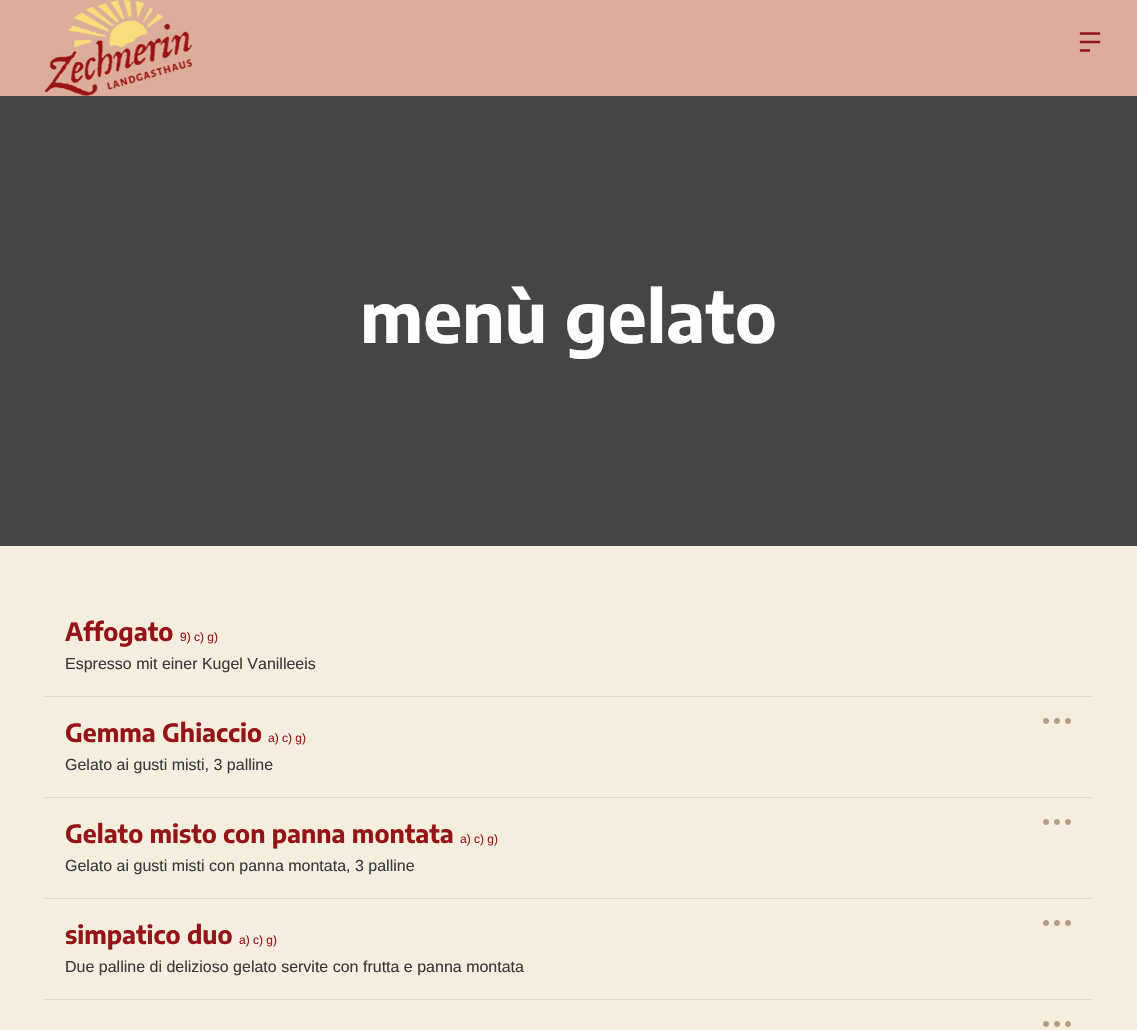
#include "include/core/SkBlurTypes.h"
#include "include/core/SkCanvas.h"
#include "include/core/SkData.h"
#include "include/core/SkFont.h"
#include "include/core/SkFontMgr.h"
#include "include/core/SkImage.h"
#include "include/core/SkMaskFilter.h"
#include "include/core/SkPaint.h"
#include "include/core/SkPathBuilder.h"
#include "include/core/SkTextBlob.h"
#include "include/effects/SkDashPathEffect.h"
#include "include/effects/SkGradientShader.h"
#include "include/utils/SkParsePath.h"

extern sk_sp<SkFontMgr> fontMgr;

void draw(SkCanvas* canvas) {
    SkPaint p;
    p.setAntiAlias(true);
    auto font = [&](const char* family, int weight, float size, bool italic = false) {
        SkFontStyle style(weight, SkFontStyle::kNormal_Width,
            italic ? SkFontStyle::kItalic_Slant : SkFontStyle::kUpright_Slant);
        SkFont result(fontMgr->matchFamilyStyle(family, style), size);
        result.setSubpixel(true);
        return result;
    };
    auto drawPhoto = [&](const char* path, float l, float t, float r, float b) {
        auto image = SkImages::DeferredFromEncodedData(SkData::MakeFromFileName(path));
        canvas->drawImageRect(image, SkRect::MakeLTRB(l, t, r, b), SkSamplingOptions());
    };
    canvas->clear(0xFFF5EDDE);
    p.setColor(0xFFDCAD9B);
    canvas->drawRect(SkRect::MakeLTRB(0, 0, 1137, 96), p);
    drawPhoto("media/1.png", 45, 0, 192, 96);
    drawPhoto("media/2.png", 1079, 32, 1101, 52);
    p.setColor(0xFF464543);
    canvas->drawRect(SkRect::MakeLTRB(0, 96, 1137, 546), p);
    auto font1 = font("Encode Sans", 700, 70);
    p.setColor(0xFFFFFFFF);
    canvas->drawString("menù gelato", 360, 343, font1, p);
    p.setColor(0xFFDDD5C8);
    canvas->drawRect(SkRect::MakeLTRB(45, 696, 1092, 697), p);
    auto font2 = font("Encode Sans", 700, 25);
    p.setColor(0xFF951418);
    canvas->drawString("Affogato", 65, 641, font2, p);
    auto font3 = font("Liberation Sans", 400, 12);
    canvas->drawString("9) c) g)", 180, 641, font3, p);
    auto font4 = font("Liberation Sans", 400, 16);
    p.setColor(0xFF393939);
    canvas->drawString("Espresso mit einer Kugel Vanilleeis", 65, 669, font4, p);
    p.setColor(0xFFDDD5C8);
    canvas->drawRect(SkRect::MakeLTRB(45, 797, 1092, 798), p);
    p.setColor(0xFF951418);
    canvas->drawString("Gemma Ghiaccio", 65, 742, font2, p);
    canvas->drawString("a) c) g)", 268, 742, font3, p);
    drawPhoto("media/3.png", 1043, 718, 1071, 724);
    p.setColor(0xFF393939);
    canvas->drawString("Gelato ai gusti misti, 3 palline", 65, 770, font4, p);
    p.setColor(0xFFDDD5C8);
    canvas->drawRect(SkRect::MakeLTRB(45, 898, 1092, 899), p);
    p.setColor(0xFF951418);
    canvas->drawString("Gelato misto con panna montata", 65, 843, font2, p);
    canvas->drawString("a) c) g)", 460, 843, font3, p);
    drawPhoto("media/3.png", 1043, 819, 1071, 825);
    p.setColor(0xFF393939);
    canvas->drawString("Gelato ai gusti misti con panna montata, 3 palline", 65, 871, font4, p);
    p.setColor(0xFFDDD5C8);
    canvas->drawRect(SkRect::MakeLTRB(45, 999, 1092, 1000), p);
    p.setColor(0xFF951418);
    canvas->drawString("simpatico duo", 65, 944, font2, p);
    canvas->drawString("a) c) g)", 239, 944, font3, p);
    drawPhoto("media/3.png", 1043, 920, 1071, 926);
    p.setColor(0xFF393939);
    canvas->drawString("Due palline di delizioso gelato servite con frutta e panna montata", 65, 972, font4, p);
    drawPhoto("media/3.png", 1043, 1021, 1071, 1027);
}
